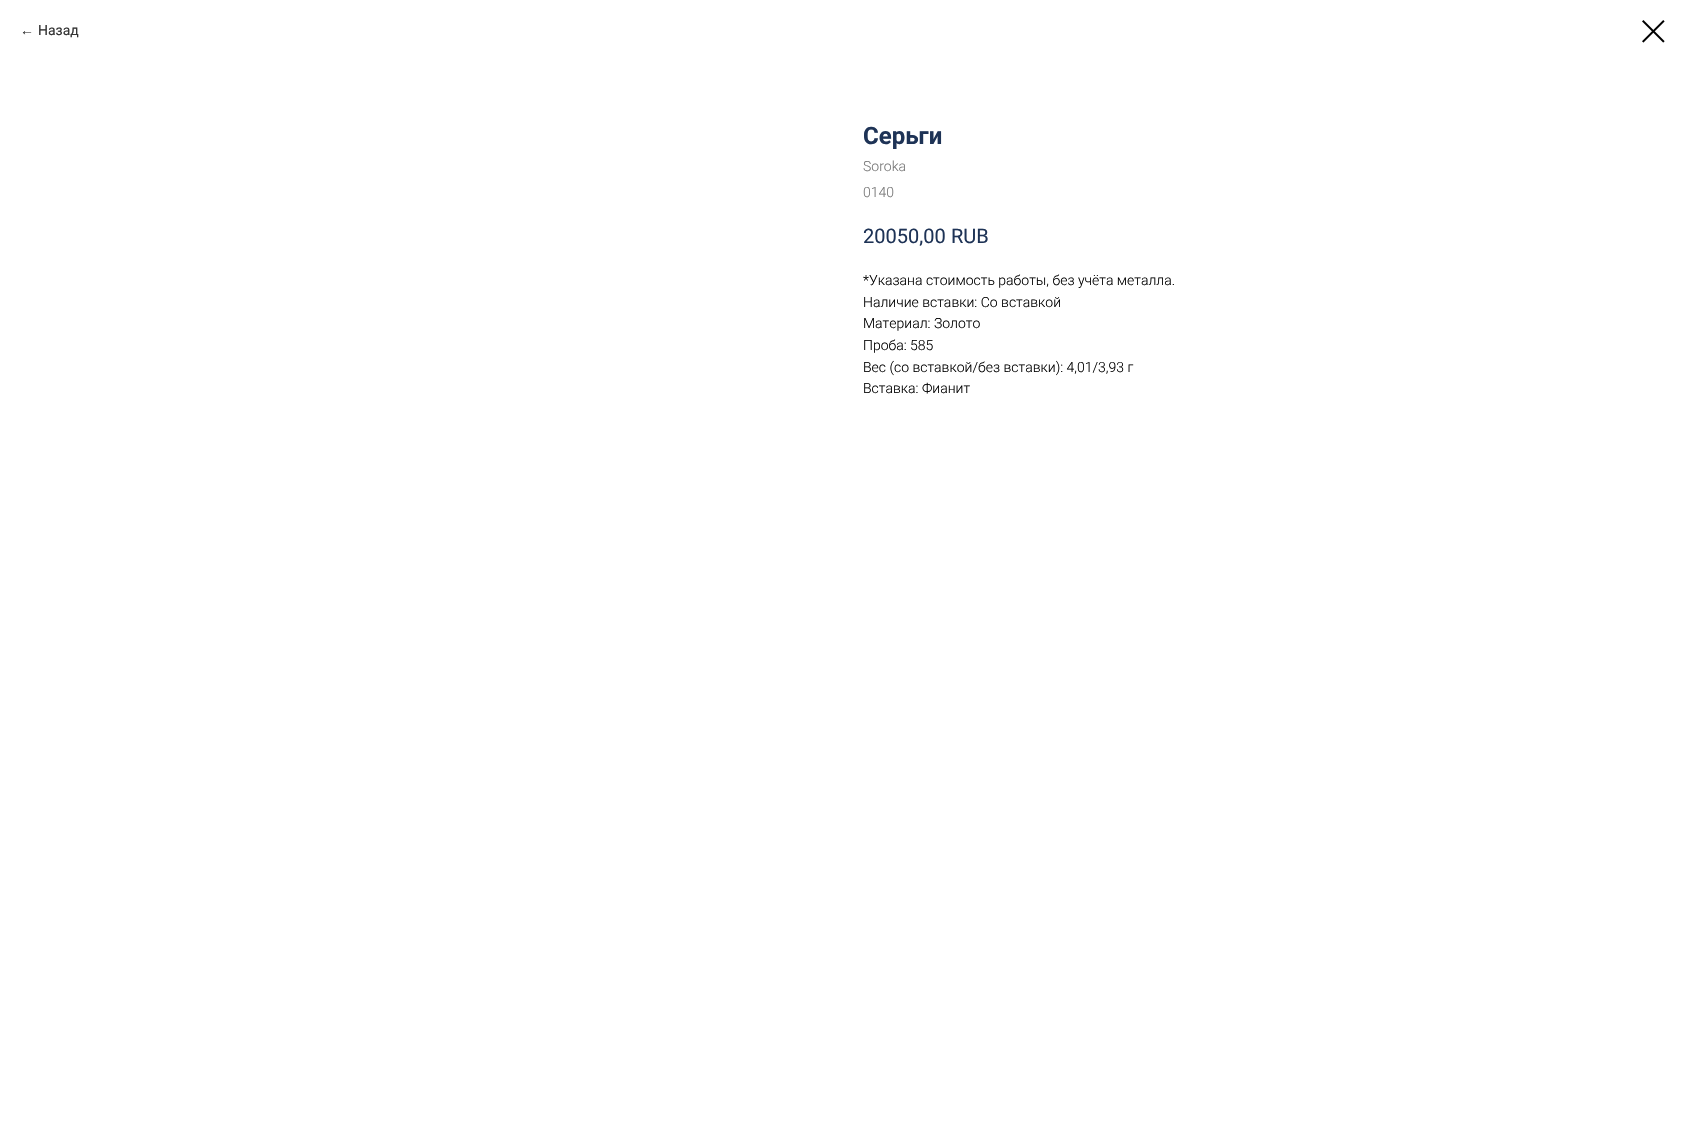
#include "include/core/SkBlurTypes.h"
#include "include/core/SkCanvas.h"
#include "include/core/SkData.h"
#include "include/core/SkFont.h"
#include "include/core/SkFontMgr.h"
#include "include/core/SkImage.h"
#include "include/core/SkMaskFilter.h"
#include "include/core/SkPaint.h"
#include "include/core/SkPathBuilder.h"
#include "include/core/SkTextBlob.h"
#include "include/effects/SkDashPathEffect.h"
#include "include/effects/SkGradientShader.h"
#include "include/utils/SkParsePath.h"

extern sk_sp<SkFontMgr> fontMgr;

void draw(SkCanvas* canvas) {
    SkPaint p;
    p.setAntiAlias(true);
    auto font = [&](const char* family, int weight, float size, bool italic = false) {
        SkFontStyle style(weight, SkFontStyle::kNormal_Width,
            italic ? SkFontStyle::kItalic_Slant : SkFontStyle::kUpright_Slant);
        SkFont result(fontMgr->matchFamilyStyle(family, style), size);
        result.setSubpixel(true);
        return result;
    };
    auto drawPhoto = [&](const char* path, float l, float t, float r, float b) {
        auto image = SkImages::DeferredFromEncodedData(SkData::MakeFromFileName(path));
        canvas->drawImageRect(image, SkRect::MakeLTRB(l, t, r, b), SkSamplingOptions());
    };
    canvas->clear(0xFFFFFFFF);
    auto font1 = font("Liberation Sans", 400, 14);
    p.setColor(0xFF333333);
    canvas->drawString("←", 20, 35, font1, p);
    auto font2 = font("Roboto", 400, 14);
    canvas->drawString("Назад", 38, 35, font2, p);
    drawPhoto("media/1.png", 1642, 20, 1665, 43);
    auto font3 = font("Roboto", 700, 24);
    p.setColor(0xFF1E3356);
    canvas->drawString("Серьги", 863, 144, font3, p);
    auto font4 = font("Roboto", 300, 14);
    p.setColor(0xFF777777);
    canvas->drawString("Soroka", 863, 171, font4, p);
    canvas->drawString("0140", 863, 197, font4, p);
    auto font5 = font("Roboto", 400, 20);
    p.setColor(0xFF1E3356);
    canvas->drawString("20050,00", 863, 243, font5, p);
    canvas->drawString("RUB", 951, 243, font5, p);
    p.setColor(0xFF000000);
    {
        const struct { const char* s; float x, y; } items[] = {
            {"*Указана стоимость работы, без учёта металла.", 863, 285},
            {"Наличие вставки: Со вставкой", 863, 307},
            {"Материал: Золото", 863, 328},
            {"Проба: 585", 863, 350},
            {"Вес (со вставкой/без вставки): 4,01/3,93 г", 863, 372},
            {"Вставка: Фианит", 863, 393},
        };
        for (auto [s, x, y] : items) {
            canvas->drawString(s, x, y, font4, p);
        }
    }
}
